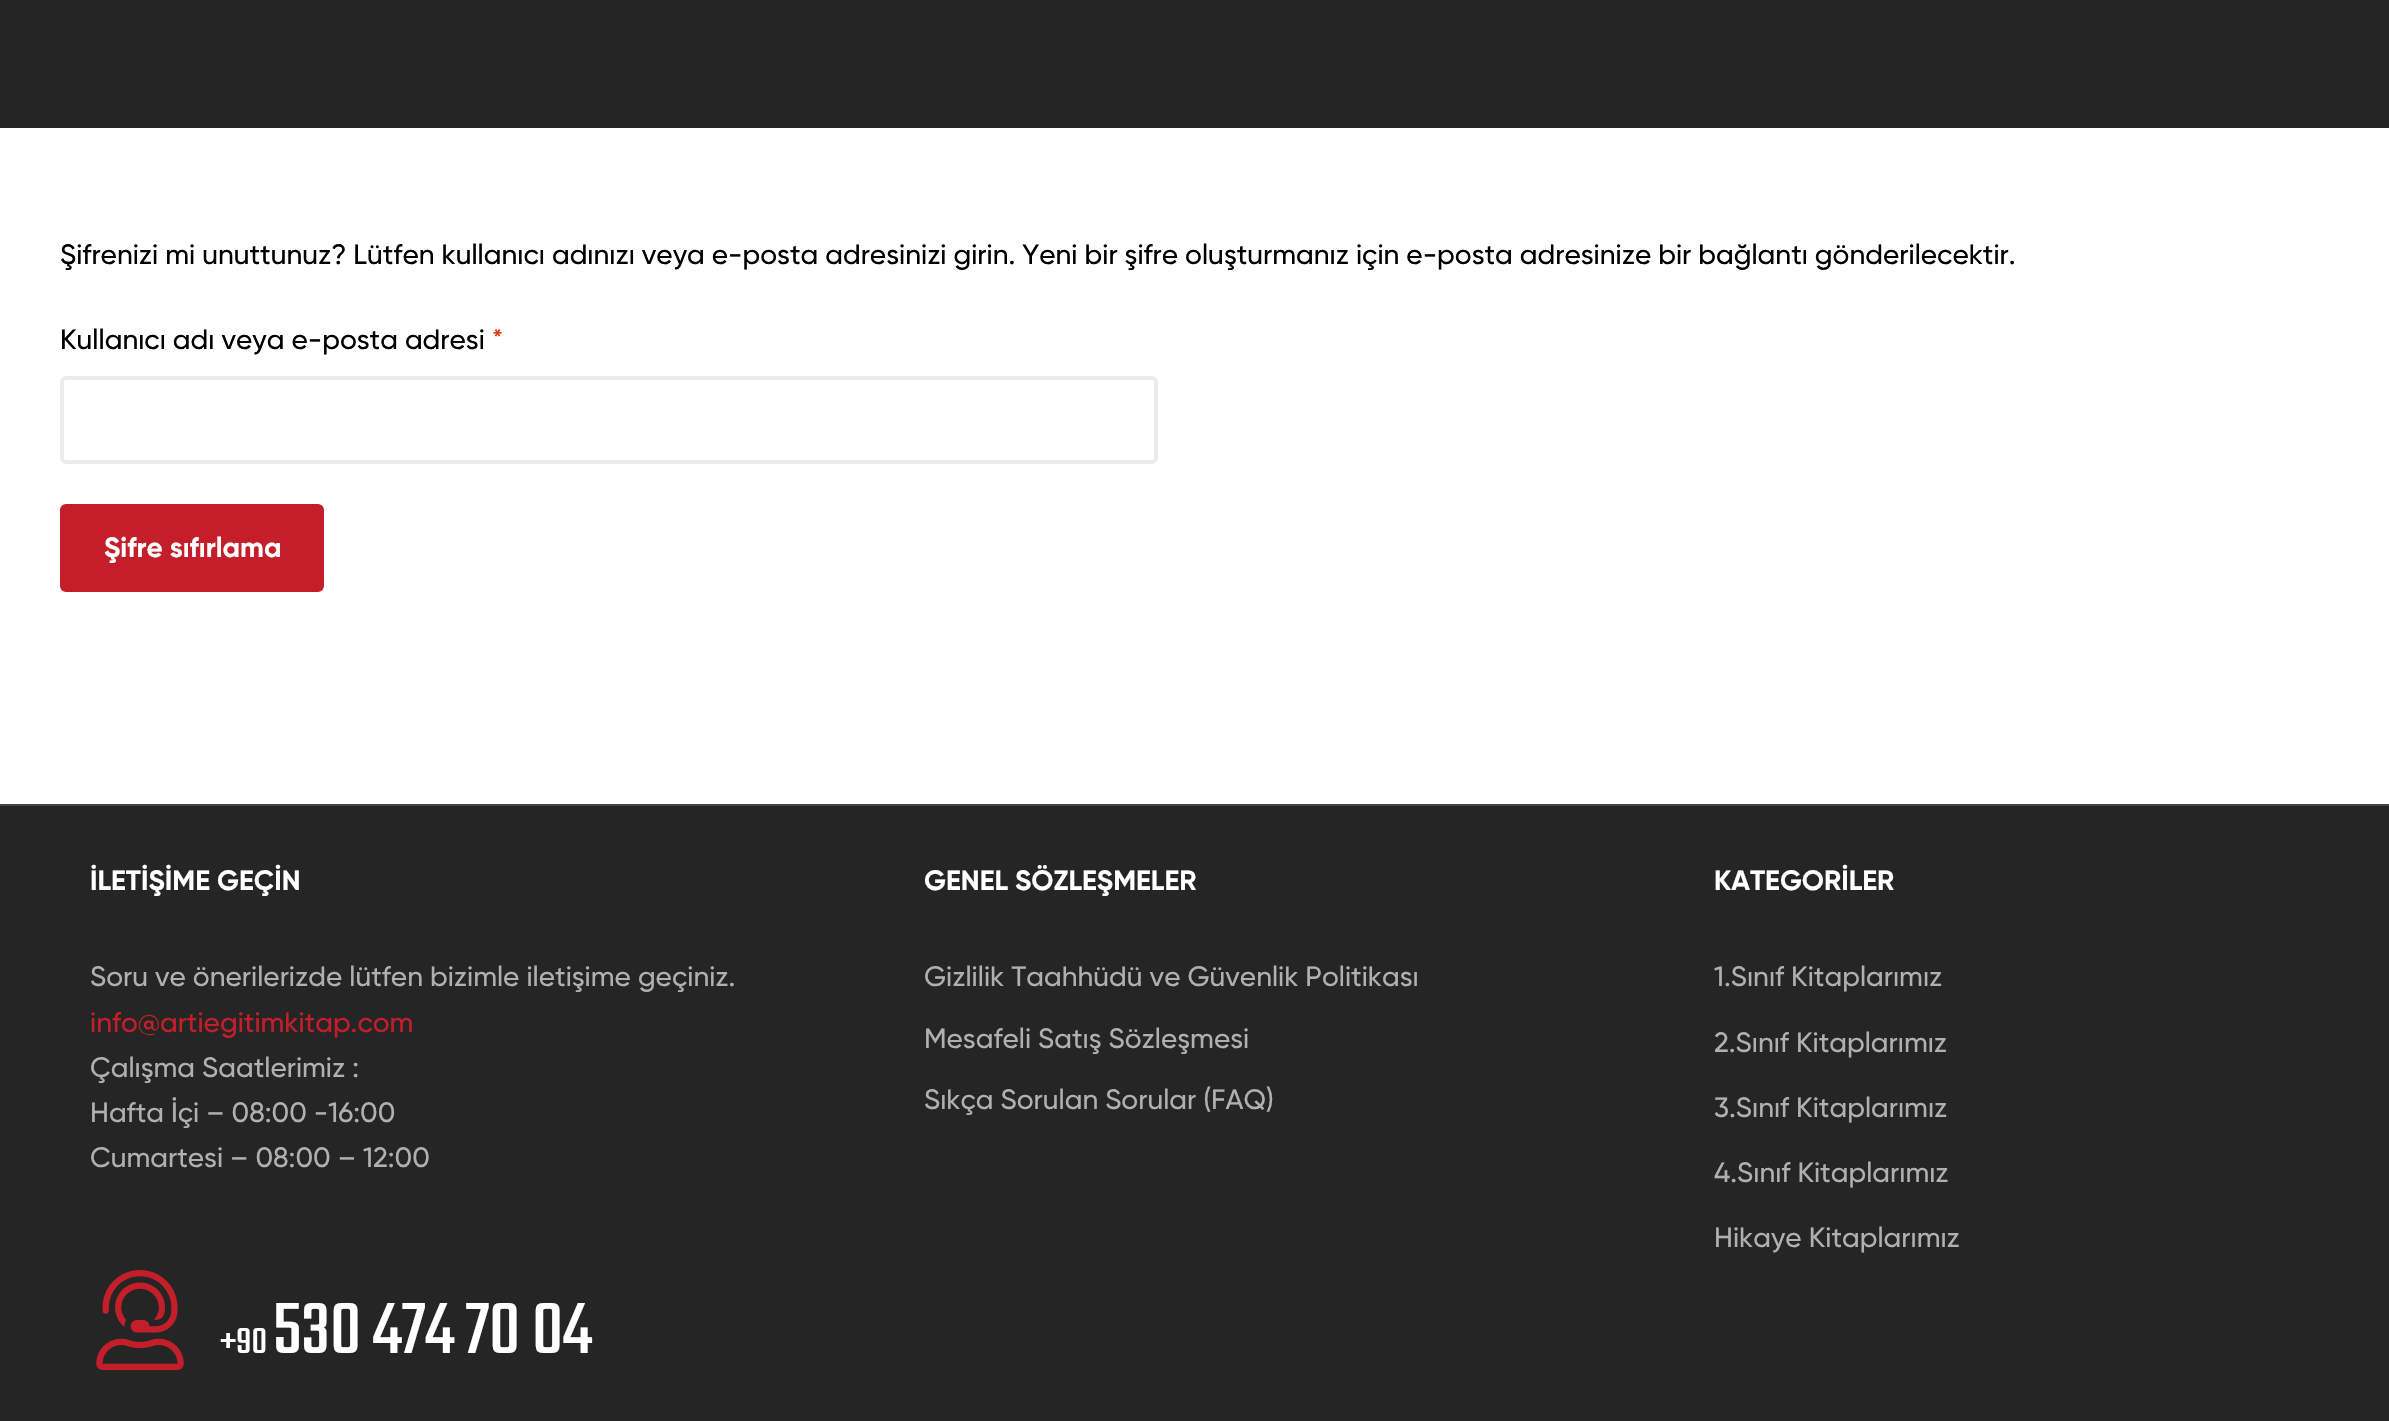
#include "include/core/SkBlurTypes.h"
#include "include/core/SkCanvas.h"
#include "include/core/SkData.h"
#include "include/core/SkFont.h"
#include "include/core/SkFontMgr.h"
#include "include/core/SkImage.h"
#include "include/core/SkMaskFilter.h"
#include "include/core/SkPaint.h"
#include "include/core/SkPathBuilder.h"
#include "include/core/SkTextBlob.h"
#include "include/effects/SkDashPathEffect.h"
#include "include/effects/SkGradientShader.h"
#include "include/utils/SkParsePath.h"

extern sk_sp<SkFontMgr> fontMgr;

void draw(SkCanvas* canvas) {
    SkPaint p;
    p.setAntiAlias(true);
    auto font = [&](const char* family, int weight, float size, bool italic = false) {
        SkFontStyle style(weight, SkFontStyle::kNormal_Width,
            italic ? SkFontStyle::kItalic_Slant : SkFontStyle::kUpright_Slant);
        SkFont result(fontMgr->matchFamilyStyle(family, style), size);
        result.setSubpixel(true);
        return result;
    };
    auto drawPhoto = [&](const char* path, float l, float t, float r, float b) {
        auto image = SkImages::DeferredFromEncodedData(SkData::MakeFromFileName(path));
        canvas->drawImageRect(image, SkRect::MakeLTRB(l, t, r, b), SkSamplingOptions());
    };
    canvas->clear(0xFFFFFFFF);
    p.setColor(0xFF252525);
    canvas->drawRect(SkRect::MakeLTRB(0, 0, 2389, 128), p);
    auto font1 = font("Gilroy", 500, 28);
    p.setColor(0xFF000000);
    canvas->drawString("Şifrenizi mi unuttunuz? Lütfen kullanıcı adınızı veya e-posta adresinizi girin. Yeni bir şifre oluşturmanız için e-posta adresinize bir bağlantı gönderilecektir.", 60, 264, font1, p);
    canvas->drawString("Kullanıcı adı veya e-posta adresi", 60, 349, font1, p);
    p.setColor(0xFFE2401C);
    canvas->drawString("*", 492, 349, font1, p);
    p.setStyle(SkPaint::kStroke_Style);
    p.setStrokeWidth(4);
    p.setColor(0xFFEBEBEB);
    canvas->drawRoundRect(SkRect::MakeLTRB(62, 378, 1156, 462), 4, 4, p);
    p.setStyle(SkPaint::kFill_Style);
    p.setColor(0xFFC41E2A);
    canvas->drawRoundRect(SkRect::MakeLTRB(62, 506, 322, 590), 4, 4, p);
    p.setStyle(SkPaint::kStroke_Style);
    canvas->drawRoundRect(SkRect::MakeLTRB(62, 506, 322, 590), 4, 4, p);
    auto font2 = font("Gilroy", 700, 28);
    p.setStyle(SkPaint::kFill_Style);
    p.setColor(0xFFFFFFFF);
    canvas->drawString("Şifre sıfırlama", 104, 557, font2, p);
    p.setColor(0xFF252525);
    canvas->drawRect(SkRect::MakeLTRB(0, 806, 2389, 1421), p);
    p.setColor(0xFF464646);
    canvas->drawRect(SkRect::MakeLTRB(0, 804, 2389, 806), p);
    p.setColor(0xFFFFFFFF);
    canvas->drawString("İLETİŞİME GEÇİN", 90, 890, font2, p);
    p.setColor(0xFFB0B0B0);
    canvas->drawString("Soru ve önerilerizde lütfen bizimle iletişime geçiniz.", 90, 986, font1, p);
    p.setColor(0xFFC41E2A);
    canvas->drawString("info@artiegitimkitap.com", 90, 1032, font1, p);
    p.setColor(0xFFB0B0B0);
    {
        const struct { const char* s; float x, y; } items[] = {
            {"Çalışma Saatlerimiz :", 90, 1077},
            {"Hafta İçi – 08:00 -16:00", 90, 1122},
            {"Cumartesi – 08:00 – 12:00", 90, 1167},
        };
        for (auto [s, x, y] : items) {
            canvas->drawString(s, x, y, font1, p);
        }
    }
    drawPhoto("media/1.png", 96, 1270, 184, 1370);
    auto font3 = font("Teko", 400, 40);
    p.setColor(0xFFFFFFFF);
    canvas->drawString("+90", 220, 1353, font3, p);
    auto font4 = font("Teko", 400, 80);
    canvas->drawString("530 474 70 04", 273, 1353, font4, p);
    canvas->drawString("GENEL SÖZLEŞMELER", 924, 890, font2, p);
    p.setColor(0xFFB0B0B0);
    {
        const struct { const char* s; float x, y; } items[] = {
            {"Gizlilik Taahhüdü ve Güvenlik Politikası", 924, 986},
            {"Mesafeli Satış Sözleşmesi", 924, 1048},
            {"Sıkça Sorulan Sorular (FAQ)", 924, 1109},
        };
        for (auto [s, x, y] : items) {
            canvas->drawString(s, x, y, font1, p);
        }
    }
    p.setColor(0xFFFFFFFF);
    canvas->drawString("KATEGORİLER", 1714, 890, font2, p);
    p.setColor(0xFFB0B0B0);
    {
        const struct { const char* s; float x, y; } items[] = {
            {"1.Sınıf Kitaplarımız", 1714, 986},
            {"2.Sınıf Kitaplarımız", 1714, 1052},
            {"3.Sınıf Kitaplarımız", 1714, 1117},
            {"4.Sınıf Kitaplarımız", 1714, 1182},
            {"Hikaye Kitaplarımız", 1714, 1247},
        };
        for (auto [s, x, y] : items) {
            canvas->drawString(s, x, y, font1, p);
        }
    }
}
